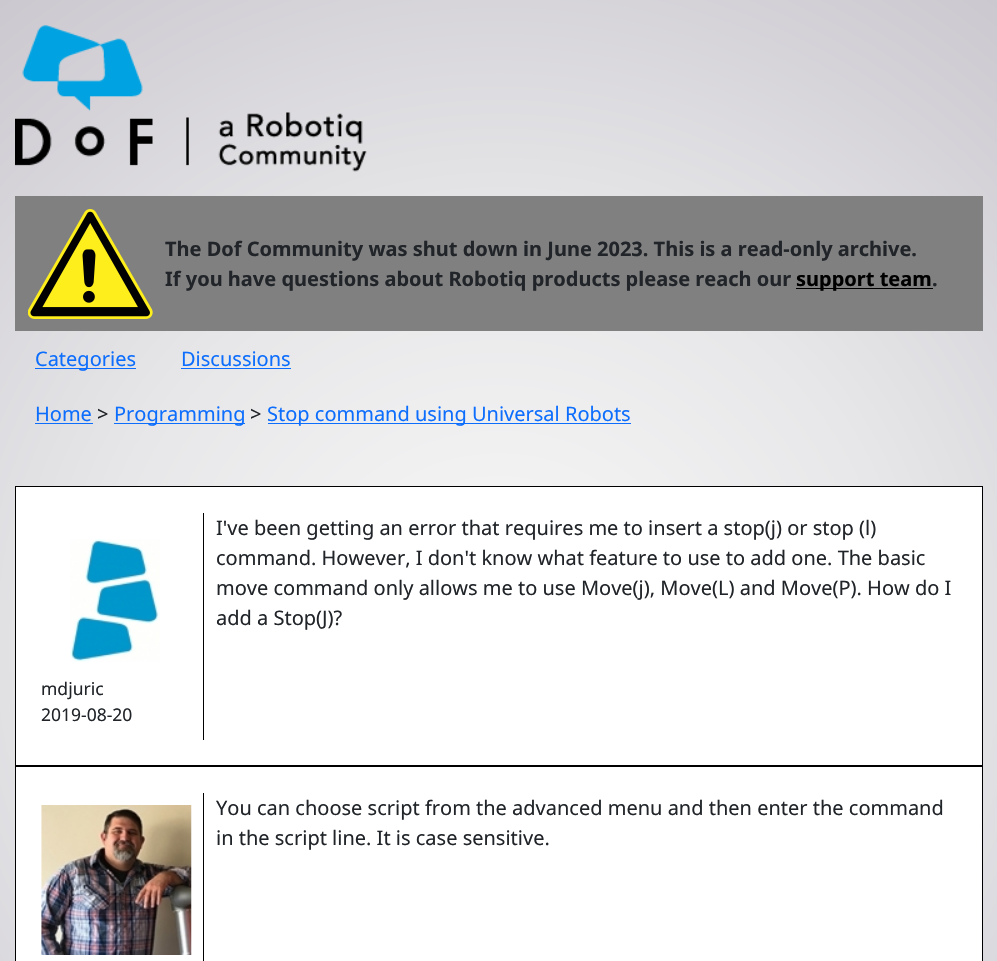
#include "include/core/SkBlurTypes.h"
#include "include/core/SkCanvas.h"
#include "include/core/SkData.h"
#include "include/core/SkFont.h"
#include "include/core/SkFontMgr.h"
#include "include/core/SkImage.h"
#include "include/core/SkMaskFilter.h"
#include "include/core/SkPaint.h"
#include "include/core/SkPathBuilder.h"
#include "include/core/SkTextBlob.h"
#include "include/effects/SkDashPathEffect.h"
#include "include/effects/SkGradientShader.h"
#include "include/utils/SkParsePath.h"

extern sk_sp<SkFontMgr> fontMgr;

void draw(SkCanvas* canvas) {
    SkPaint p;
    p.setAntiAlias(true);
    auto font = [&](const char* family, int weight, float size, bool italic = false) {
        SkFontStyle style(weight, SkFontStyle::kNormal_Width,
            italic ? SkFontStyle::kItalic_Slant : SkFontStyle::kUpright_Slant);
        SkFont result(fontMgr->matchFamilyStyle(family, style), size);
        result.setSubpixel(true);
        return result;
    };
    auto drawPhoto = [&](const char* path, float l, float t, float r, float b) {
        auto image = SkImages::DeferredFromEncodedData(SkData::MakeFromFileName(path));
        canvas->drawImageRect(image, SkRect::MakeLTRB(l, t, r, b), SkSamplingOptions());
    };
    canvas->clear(0xFFFFFFFF);
    {
        const SkColor colors[] = {0xFFF9F9F9, 0xFFE7E7E9, 0xFFCBC8CF};
        const float stops[] = {0, 0.5f, 1};
        p.setShader(SkGradientShader::MakeRadial({499, 646}, 816, colors, stops, 3, SkTileMode::kClamp));
        p.setAlpha(255);
    }
    canvas->drawRect(SkRect::MakeLTRB(0, 0, 997, 961), p);
    drawPhoto("media/1.png", 15, 25, 367, 172);
    p.setShader(nullptr);
    p.setColor(0xFF808080);
    canvas->drawRect(SkRect::MakeLTRB(15, 196, 983, 331), p);
    drawPhoto("media/2.png", 28, 209, 153, 319);
    auto font1 = font("Noto Sans", 700, 20);
    p.setColor(0xFF212529);
    canvas->drawString("The Dof Community was shut down in June 2023. This is a read-only archive.", 165, 256, font1, p);
    canvas->drawString("If you have questions about Robotiq products please reach our", 165, 286, font1, p);
    p.setColor(0xFF000000);
    canvas->drawRect(SkRect::MakeLTRB(796, 288, 933, 289), p);
    canvas->drawString("support team", 796, 286, font1, p);
    p.setColor(0xFF212529);
    canvas->drawString(".", 932, 286, font1, p);
    p.setColor(0xFF0D6EFD);
    canvas->drawRect(SkRect::MakeLTRB(35, 368, 136, 369), p);
    auto font2 = font("Noto Sans", 400, 20);
    canvas->drawString("Categories", 35, 366, font2, p);
    canvas->drawString("Discussions", 181, 366, font2, p);
    canvas->drawRect(SkRect::MakeLTRB(181, 368, 291, 369), p);
    canvas->drawString("Home", 35, 421, font2, p);
    canvas->drawRect(SkRect::MakeLTRB(35, 423, 93, 424), p);
    p.setColor(0xFF212529);
    canvas->drawString(">", 97, 421, font2, p);
    p.setColor(0xFF0D6EFD);
    canvas->drawRect(SkRect::MakeLTRB(114, 423, 245, 424), p);
    canvas->drawString("Programming", 114, 421, font2, p);
    p.setColor(0xFF212529);
    canvas->drawString(">", 250, 421, font2, p);
    p.setColor(0xFF0D6EFD);
    canvas->drawRect(SkRect::MakeLTRB(268, 423, 631, 424), p);
    canvas->drawString("Stop command using Universal Robots", 267, 421, font2, p);
    p.setColor(0xFFFFFFFF);
    canvas->drawRect(SkRect::MakeLTRB(15.5f, 486.5f, 982.5f, 765.5f), p);
    p.setStyle(SkPaint::kStroke_Style);
    p.setStrokeWidth(1);
    p.setColor(0xFF000000);
    canvas->drawRect(SkRect::MakeLTRB(15.5f, 486.5f, 982.5f, 765.5f), p);
    p.setStyle(SkPaint::kFill_Style);
    p.setColor(0xFF212529);
    {
        const struct { const char* s; float x, y; } items[] = {
            {"I've been getting an error that requires me to insert a stop(j) or stop (l)", 216, 535},
            {"command. However, I don't know what feature to use to add one. The basic", 216, 565},
            {"move command only allows me to use Move(j), Move(L) and Move(P). How do I", 216, 595},
            {"add a Stop(J)?", 216, 625},
        };
        for (auto [s, x, y] : items) {
            canvas->drawString(s, x, y, font2, p);
        }
    }
    p.setColor(0xFF000000);
    canvas->drawRect(SkRect::MakeLTRB(203, 513, 204, 740), p);
    drawPhoto("media/3.png", 70, 539, 160, 662);
    auto font3 = font("Noto Sans", 400, 17.5f);
    p.setColor(0xFF212529);
    canvas->drawString("mdjuric", 41, 695, font3, p);
    canvas->drawString("2019-08-20", 41, 721, font3, p);
    p.setColor(0xFFFFFFFF);
    canvas->drawRect(SkRect::MakeLTRB(15.5f, 766.5f, 982.5f, 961.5f), p);
    p.setStyle(SkPaint::kStroke_Style);
    p.setColor(0xFF000000);
    canvas->drawRect(SkRect::MakeLTRB(15.5f, 766.5f, 982.5f, 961.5f), p);
    p.setStyle(SkPaint::kFill_Style);
    canvas->drawRect(SkRect::MakeLTRB(203, 793, 204, 961), p);
    drawPhoto("media/4.png", 41, 805, 192, 955);
    p.setColor(0xFF212529);
    canvas->drawString("You can choose script from the advanced menu and then enter the command", 216, 815, font2, p);
    canvas->drawString("in the script line. It is case sensitive.", 216, 845, font2, p);
}
